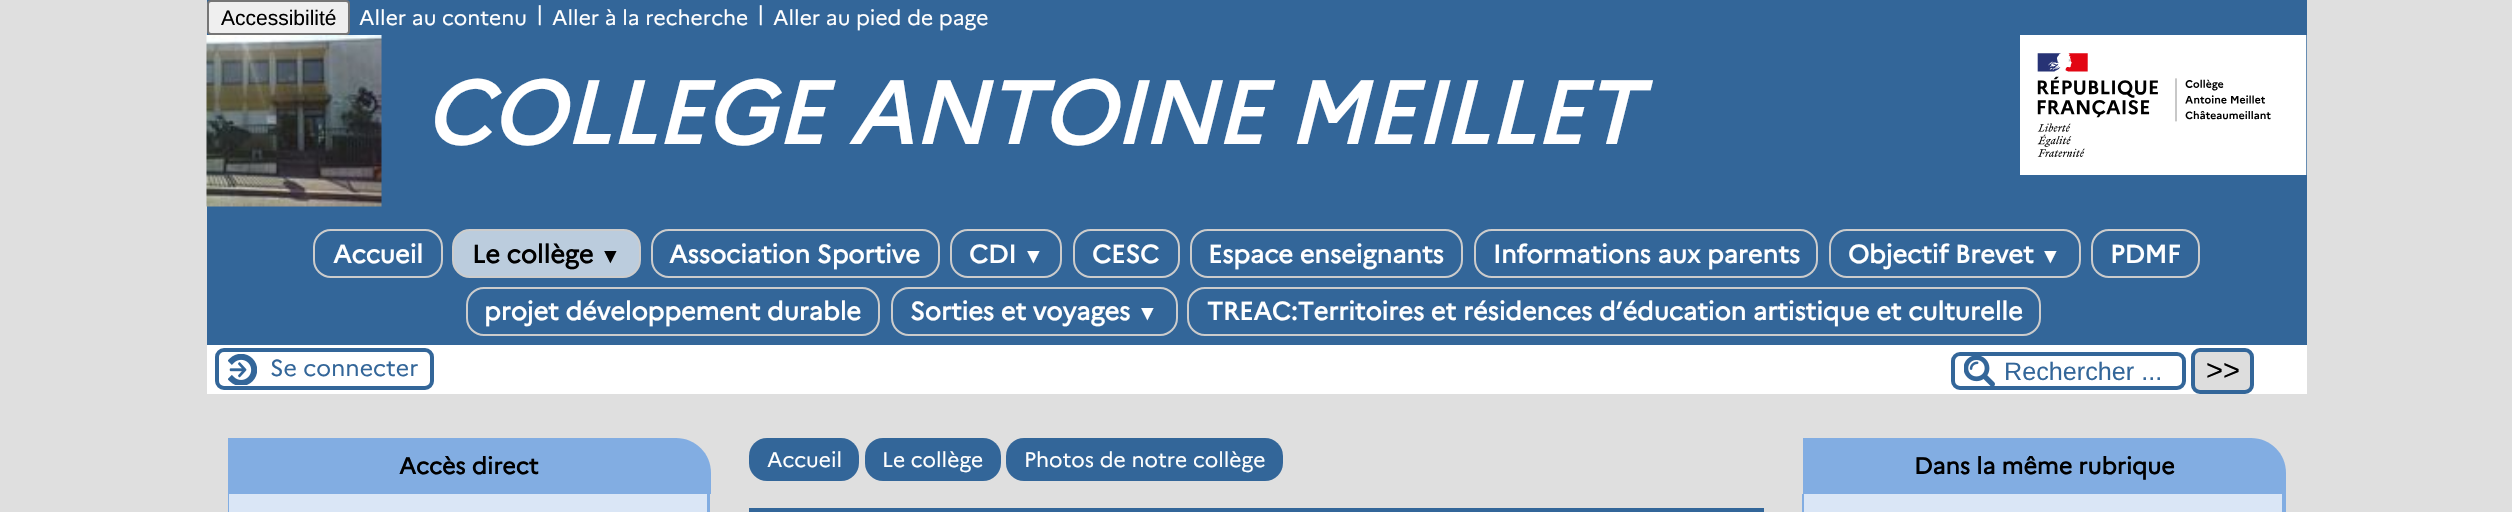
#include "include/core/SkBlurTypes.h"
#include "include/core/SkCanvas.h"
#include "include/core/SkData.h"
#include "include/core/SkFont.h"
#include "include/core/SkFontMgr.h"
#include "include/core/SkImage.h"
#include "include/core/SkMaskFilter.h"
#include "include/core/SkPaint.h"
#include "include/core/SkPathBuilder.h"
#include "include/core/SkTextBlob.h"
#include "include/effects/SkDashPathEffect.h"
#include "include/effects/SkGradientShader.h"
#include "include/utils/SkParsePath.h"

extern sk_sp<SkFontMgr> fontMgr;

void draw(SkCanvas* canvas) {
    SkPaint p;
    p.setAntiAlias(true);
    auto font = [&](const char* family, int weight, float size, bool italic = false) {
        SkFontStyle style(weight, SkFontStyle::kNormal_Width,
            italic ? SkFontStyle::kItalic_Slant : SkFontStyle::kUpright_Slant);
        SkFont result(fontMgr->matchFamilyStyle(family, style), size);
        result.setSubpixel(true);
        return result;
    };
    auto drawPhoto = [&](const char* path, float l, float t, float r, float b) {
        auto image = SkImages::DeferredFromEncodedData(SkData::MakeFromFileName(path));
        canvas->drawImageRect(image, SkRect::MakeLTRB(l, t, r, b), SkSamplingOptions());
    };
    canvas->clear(0xFFDFDFDF);
    p.setColor(0xFFFFFFFF);
    canvas->drawRect(SkRect::MakeLTRB(207, 345, 2307, 394), p);
    p.setColor(0xFF336699);
    canvas->drawRect(SkRect::MakeLTRB(207, 0, 2307, 345), p);
    p.setColor(0xFFEFEFEF);
    canvas->drawRoundRect(SkRect::MakeLTRB(208, 1, 349, 34), 3, 3, p);
    p.setStyle(SkPaint::kStroke_Style);
    p.setStrokeWidth(2);
    p.setColor(0xFF767676);
    canvas->drawRoundRect(SkRect::MakeLTRB(208, 1, 349, 34), 3, 3, p);
    auto font1 = font("Liberation Sans", 400, 21);
    p.setStyle(SkPaint::kFill_Style);
    p.setColor(0xFF000000);
    canvas->drawString("Accessibilité", 221, 25, font1, p);
    auto font2 = font("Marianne", 400, 21);
    p.setColor(0xFFFFFFFF);
    {
        const struct { const char* s; float x, y; } items[] = {
            {"Aller au contenu", 359, 25},
            {"|", 536, 21},
            {"Aller à la recherche", 552, 25},
            {"|", 757, 21},
            {"Aller au pied de page", 773, 25},
        };
        for (auto [s, x, y] : items) {
            canvas->drawString(s, x, y, font2, p);
        }
    }
    drawPhoto("media/1.png", 206, 35, 382, 207);
    auto font3 = font("Marianne", 700, 87.5f, true);
    canvas->drawString("COLLEGE ANTOINE MEILLET", 424, 144, font3, p);
    drawPhoto("media/2.png", 2020, 35, 2307, 175);
    p.setStyle(SkPaint::kStroke_Style);
    p.setColor(0xFFCCCCCC);
    canvas->drawRoundRect(SkRect::MakeLTRB(314, 230, 442, 277), 17, 17, p);
    auto font4 = font("Marianne", 700, 25.2f);
    p.setStyle(SkPaint::kFill_Style);
    p.setColor(0xFFFFFFFF);
    canvas->drawString("Accueil", 333, 263, font4, p);
    p.setColor(0xFFBBCCDD);
    canvas->drawRoundRect(SkRect::MakeLTRB(453, 230, 640, 277), 17, 17, p);
    p.setStyle(SkPaint::kStroke_Style);
    p.setColor(0xFFCCCCCC);
    canvas->drawRoundRect(SkRect::MakeLTRB(453, 230, 640, 277), 17, 17, p);
    p.setStyle(SkPaint::kFill_Style);
    p.setColor(0xFF000000);
    canvas->drawString("Le collège", 472, 263, font4, p);
    auto font5 = font("Liberation Serif", 700, 21);
    canvas->drawString("▼", 600, 263, font5, p);
    p.setStyle(SkPaint::kStroke_Style);
    p.setColor(0xFFCCCCCC);
    canvas->drawRoundRect(SkRect::MakeLTRB(652, 230, 939, 277), 17, 17, p);
    p.setStyle(SkPaint::kFill_Style);
    p.setColor(0xFFFFFFFF);
    canvas->drawString("Association Sportive", 669, 263, font4, p);
    p.setStyle(SkPaint::kStroke_Style);
    p.setColor(0xFFCCCCCC);
    canvas->drawRoundRect(SkRect::MakeLTRB(951, 230, 1061, 277), 17, 17, p);
    p.setStyle(SkPaint::kFill_Style);
    p.setColor(0xFFFFFFFF);
    canvas->drawString("CDI", 969, 263, font4, p);
    canvas->drawString("▼", 1023, 263, font5, p);
    p.setStyle(SkPaint::kStroke_Style);
    p.setColor(0xFFCCCCCC);
    canvas->drawRoundRect(SkRect::MakeLTRB(1074, 230, 1179, 277), 17, 17, p);
    p.setStyle(SkPaint::kFill_Style);
    p.setColor(0xFFFFFFFF);
    canvas->drawString("CESC", 1092, 263, font4, p);
    p.setStyle(SkPaint::kStroke_Style);
    p.setColor(0xFFCCCCCC);
    canvas->drawRoundRect(SkRect::MakeLTRB(1191, 230, 1462, 277), 17, 17, p);
    p.setStyle(SkPaint::kFill_Style);
    p.setColor(0xFFFFFFFF);
    canvas->drawString("Espace enseignants", 1208, 263, font4, p);
    p.setStyle(SkPaint::kStroke_Style);
    p.setColor(0xFFCCCCCC);
    canvas->drawRoundRect(SkRect::MakeLTRB(1475, 230, 1817, 277), 17, 17, p);
    p.setStyle(SkPaint::kFill_Style);
    p.setColor(0xFFFFFFFF);
    canvas->drawString("Informations aux parents", 1493, 263, font4, p);
    p.setStyle(SkPaint::kStroke_Style);
    p.setColor(0xFFCCCCCC);
    canvas->drawRoundRect(SkRect::MakeLTRB(1830, 230, 2080, 277), 17, 17, p);
    p.setStyle(SkPaint::kFill_Style);
    p.setColor(0xFFFFFFFF);
    canvas->drawString("Objectif Brevet", 1848, 263, font4, p);
    canvas->drawString("▼", 2040, 263, font5, p);
    p.setStyle(SkPaint::kStroke_Style);
    p.setColor(0xFFCCCCCC);
    canvas->drawRoundRect(SkRect::MakeLTRB(2092, 230, 2199, 277), 17, 17, p);
    p.setStyle(SkPaint::kFill_Style);
    p.setColor(0xFFFFFFFF);
    canvas->drawString("PDMF", 2110, 263, font4, p);
    p.setStyle(SkPaint::kStroke_Style);
    p.setColor(0xFFCCCCCC);
    canvas->drawRoundRect(SkRect::MakeLTRB(467, 288, 879, 335), 17, 17, p);
    p.setStyle(SkPaint::kFill_Style);
    p.setColor(0xFFFFFFFF);
    canvas->drawString("projet développement durable", 484, 320, font4, p);
    p.setStyle(SkPaint::kStroke_Style);
    p.setColor(0xFFCCCCCC);
    canvas->drawRoundRect(SkRect::MakeLTRB(892, 288, 1177, 335), 17, 17, p);
    p.setStyle(SkPaint::kFill_Style);
    p.setColor(0xFFFFFFFF);
    canvas->drawString("Sorties et voyages", 910, 320, font4, p);
    canvas->drawString("▼", 1137, 320, font5, p);
    p.setStyle(SkPaint::kStroke_Style);
    p.setColor(0xFFCCCCCC);
    canvas->drawRoundRect(SkRect::MakeLTRB(1188, 288, 2040, 335), 17, 17, p);
    p.setStyle(SkPaint::kFill_Style);
    p.setColor(0xFFFFFFFF);
    canvas->drawString("TREAC:Territoires et résidences d’éducation artistique et culturelle", 1207, 320, font4, p);
    drawPhoto("media/3.png", 228, 354, 257, 385);
    p.setStyle(SkPaint::kStroke_Style);
    p.setStrokeWidth(4);
    p.setColor(0xFF336699);
    canvas->drawRoundRect(SkRect::MakeLTRB(217, 350, 432, 388), 7, 7, p);
    auto font6 = font("Marianne", 400, 23.1f);
    p.setStyle(SkPaint::kFill_Style);
    canvas->drawString("Se connecter", 270, 376, font6, p);
    drawPhoto("media/4.png", 1964, 356, 1995, 386);
    p.setStyle(SkPaint::kStroke_Style);
    canvas->drawRoundRect(SkRect::MakeLTRB(1953, 354, 2184, 388), 7, 7, p);
    auto font7 = font("Liberation Sans", 400, 25.2f);
    p.setStyle(SkPaint::kFill_Style);
    canvas->drawString("Rechercher ...", 2004, 380, font7, p);
    p.setColor(0xFFDDDDDD);
    canvas->drawRoundRect(SkRect::MakeLTRB(2193, 350, 2252, 392), 7, 7, p);
    p.setStyle(SkPaint::kStroke_Style);
    p.setColor(0xFF336699);
    canvas->drawRoundRect(SkRect::MakeLTRB(2193, 350, 2252, 392), 7, 7, p);
    auto font8 = font("Liberation Sans", 400, 29);
    p.setStyle(SkPaint::kFill_Style);
    p.setColor(0xFF000000);
    canvas->drawString(">>", 2206, 380, font8, p);
    p.setColor(0xFF336699);
    canvas->drawRoundRect(SkRect::MakeLTRB(749, 438, 859, 481), 18, 18, p);
    p.setColor(0xFFFFFFFF);
    canvas->drawString("Accueil", 767, 467, font2, p);
    p.setColor(0xFF336699);
    canvas->drawRoundRect(SkRect::MakeLTRB(865, 438, 1001, 481), 18, 18, p);
    p.setColor(0xFFFFFFFF);
    canvas->drawString("Le collège", 882, 467, font2, p);
    p.setColor(0xFF336699);
    canvas->drawRoundRect(SkRect::MakeLTRB(1006, 438, 1283, 481), 18, 18, p);
    p.setColor(0xFFFFFFFF);
    canvas->drawString("Photos de notre collège", 1024, 467, font2, p);
    p.setColor(0xFF336699);
    canvas->drawRect(SkRect::MakeLTRB(749, 508, 1764, 512), p);
    p.setColor(0xFF82ADE2);
    canvas->drawPath(SkPathBuilder().moveTo(228, 438).lineTo(676, 438).cubicTo(695.5f, 438, 711, 453.5f, 711, 473).lineTo(711, 494).lineTo(228, 494).close().detach(), p);
    auto font9 = font("Marianne", 700, 23.1f);
    p.setColor(0xFF000000);
    canvas->drawString("Accès direct", 399, 474, font9, p);
    p.setColor(0xFFDAE6F6);
    canvas->drawPath(SkPathBuilder().moveTo(229, 494).lineTo(707, 494).lineTo(707, 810).lineTo(245, 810).cubicTo(236, 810, 229, 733, 229, 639).close().detach(), p);
    p.setColor(0xFF82ADE2);
    canvas->drawPath(SkPathBuilder(SkPathFillType::kEvenOdd).moveTo(228, 494).lineTo(710, 494).lineTo(710, 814).lineTo(245, 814).cubicTo(235, 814, 228, 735, 228, 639).close().moveTo(229, 494).lineTo(707, 494).lineTo(707, 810).lineTo(245, 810).cubicTo(236, 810, 229, 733, 229, 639).close().detach(), p);
    canvas->drawPath(SkPathBuilder().moveTo(1803, 438).lineTo(2251, 438).cubicTo(2270.5f, 438, 2286, 453.5f, 2286, 473).lineTo(2286, 494).lineTo(1803, 494).close().detach(), p);
    p.setColor(0xFF000000);
    canvas->drawString("Dans la même rubrique", 1914, 474, font9, p);
    p.setColor(0xFFDAE6F6);
    canvas->drawPath(SkPathBuilder().moveTo(1804, 494).lineTo(2282, 494).lineTo(2282, 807).lineTo(1820, 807).cubicTo(1811, 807, 1804, 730, 1804, 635).close().detach(), p);
    p.setColor(0xFF82ADE2);
    canvas->drawPath(SkPathBuilder(SkPathFillType::kEvenOdd).moveTo(1802, 494).lineTo(2286, 494).lineTo(2286, 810).lineTo(1820, 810).cubicTo(1810, 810, 1802, 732, 1802, 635).close().moveTo(1804, 494).lineTo(2282, 494).lineTo(2282, 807).lineTo(1820, 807).cubicTo(1811, 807, 1804, 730, 1804, 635).close().detach(), p);
}
